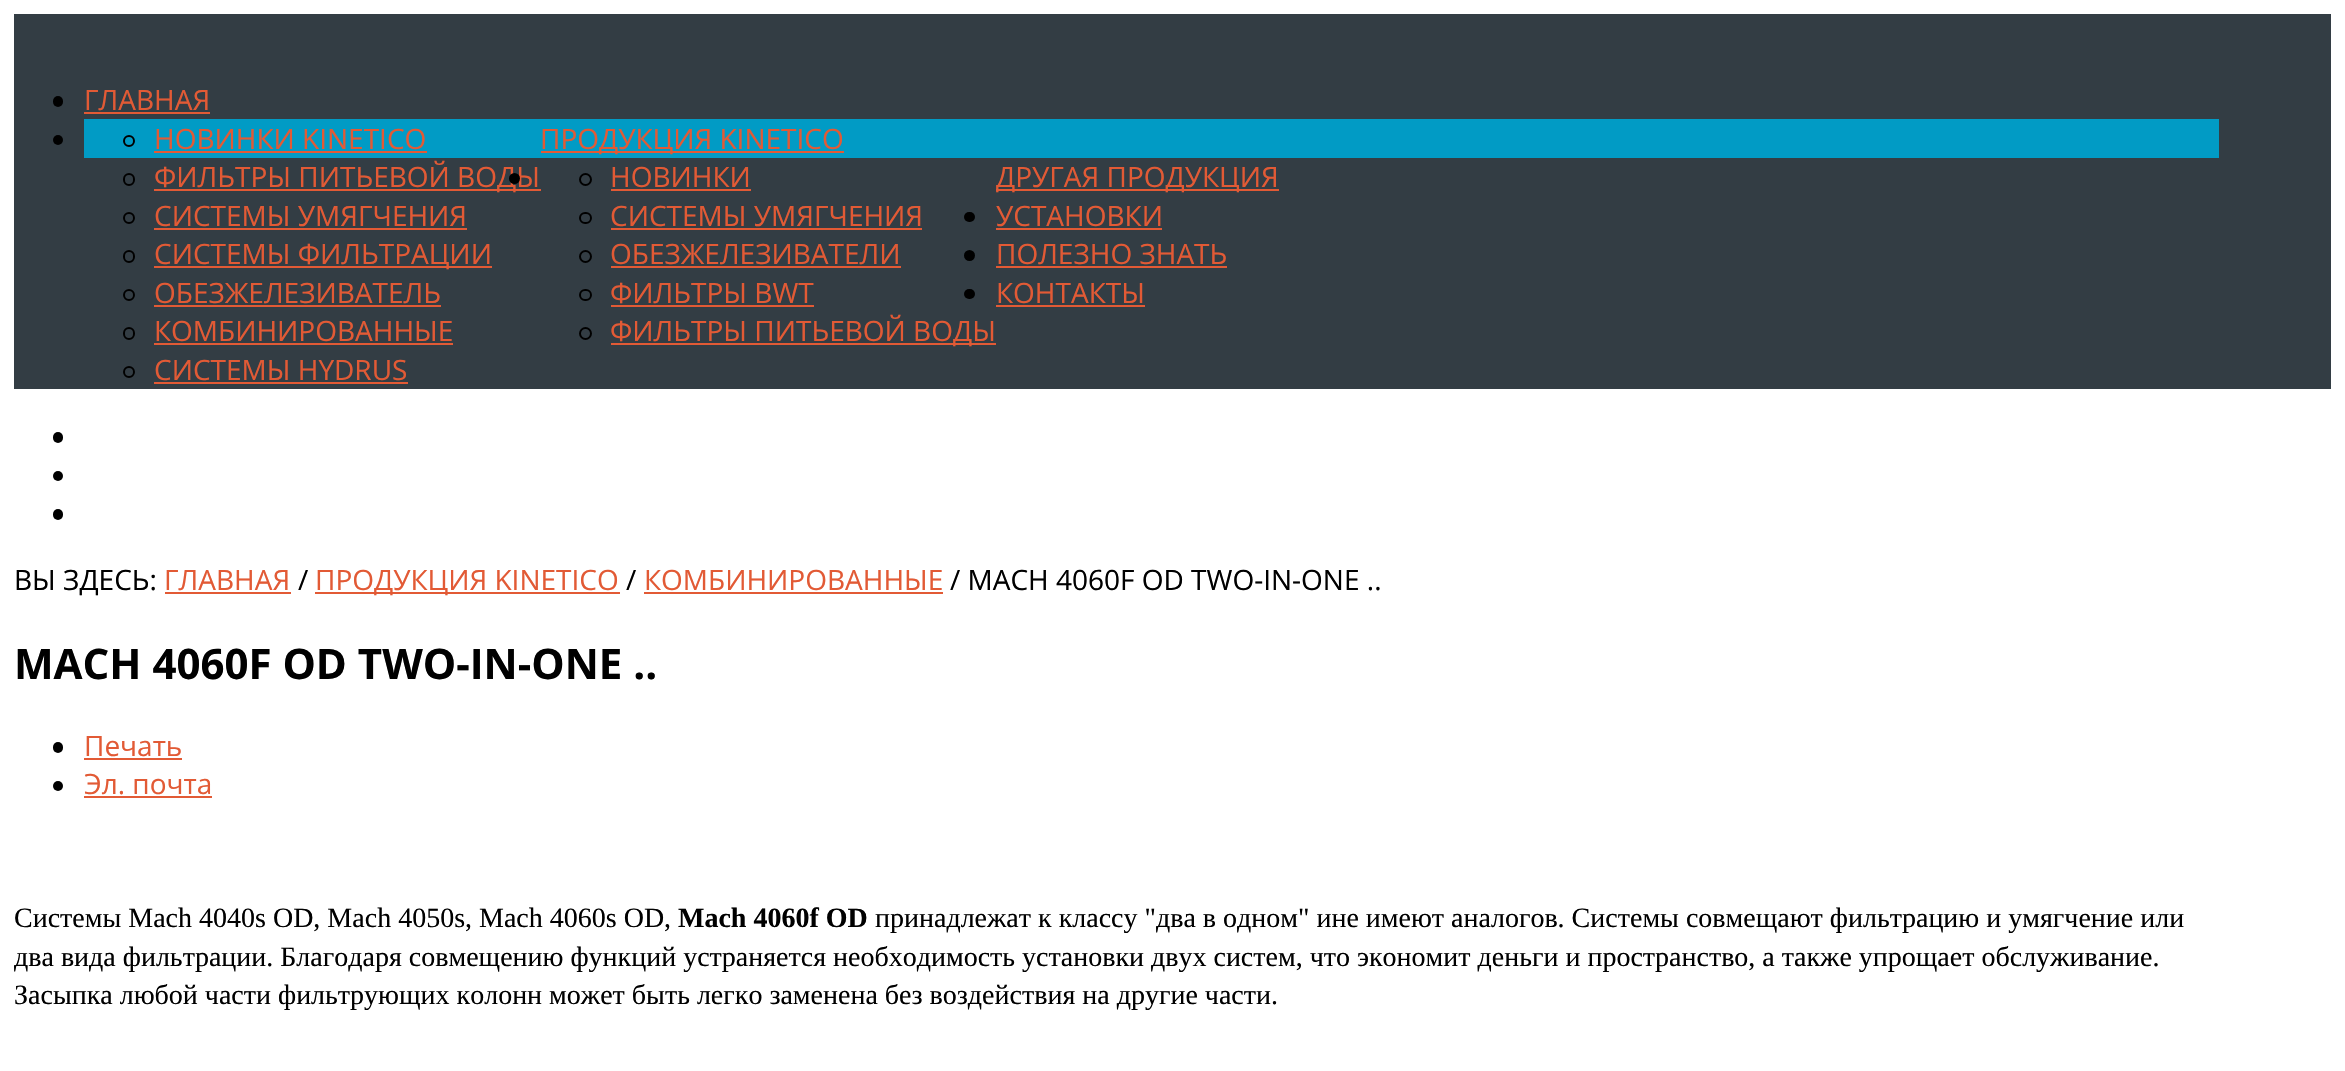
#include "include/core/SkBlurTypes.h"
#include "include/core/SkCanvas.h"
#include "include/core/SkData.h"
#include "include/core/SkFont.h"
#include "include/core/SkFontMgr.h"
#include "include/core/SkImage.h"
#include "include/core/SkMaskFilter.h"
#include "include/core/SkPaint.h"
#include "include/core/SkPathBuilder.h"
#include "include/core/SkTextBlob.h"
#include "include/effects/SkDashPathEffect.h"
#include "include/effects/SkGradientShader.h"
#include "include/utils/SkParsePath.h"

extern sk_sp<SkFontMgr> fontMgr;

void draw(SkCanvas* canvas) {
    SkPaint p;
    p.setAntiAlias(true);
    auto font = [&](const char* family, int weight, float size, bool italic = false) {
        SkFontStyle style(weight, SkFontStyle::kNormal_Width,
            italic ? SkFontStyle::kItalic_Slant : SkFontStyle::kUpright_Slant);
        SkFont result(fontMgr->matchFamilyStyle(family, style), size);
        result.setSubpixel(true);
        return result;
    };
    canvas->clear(0xFFFFFFFF);
    p.setColor(0xFF333D44);
    canvas->drawRect(SkRect::MakeLTRB(14, 14, 2331, 389), p);
    p.setColor(0xFF000000);
    canvas->drawRoundRect(SkRect::MakeLTRB(53, 96, 63, 107), 5, 5, p);
    auto font1 = font("Open Sans", 400, 28);
    p.setColor(0xFFE25A35);
    canvas->drawString("ГЛАВНАЯ", 84, 110, font1, p);
    canvas->drawRect(SkRect::MakeLTRB(84, 112, 210, 114), p);
    p.setColor(0xFF019BC5);
    canvas->drawRect(SkRect::MakeLTRB(84, 119, 2219, 158), p);
    p.setColor(0xFF000000);
    canvas->drawCircle(58, 140, 5, p);
    p.setStyle(SkPaint::kStroke_Style);
    p.setStrokeWidth(2);
    canvas->drawCircle(129, 141, 5, p);
    p.setStyle(SkPaint::kFill_Style);
    p.setColor(0xFFE25A35);
    canvas->drawString("НОВИНКИ KINETICO", 154, 149, font1, p);
    canvas->drawRect(SkRect::MakeLTRB(154, 151, 427, 153), p);
    p.setStyle(SkPaint::kStroke_Style);
    p.setColor(0xFF000000);
    canvas->drawRoundRect(SkRect::MakeLTRB(124, 174, 134, 185), 5, 5, p);
    p.setStyle(SkPaint::kFill_Style);
    p.setColor(0xFFE25A35);
    canvas->drawRect(SkRect::MakeLTRB(154, 189, 541, 191), p);
    canvas->drawString("ФИЛЬТРЫ ПИТЬЕВОЙ ВОДЫ", 154, 187, font1, p);
    p.setStyle(SkPaint::kStroke_Style);
    p.setColor(0xFF000000);
    canvas->drawCircle(129, 218, 5, p);
    p.setStyle(SkPaint::kFill_Style);
    p.setColor(0xFFE25A35);
    canvas->drawString("СИСТЕМЫ УМЯГЧЕНИЯ", 154, 226, font1, p);
    canvas->drawRect(SkRect::MakeLTRB(154, 228, 467, 230), p);
    p.setStyle(SkPaint::kStroke_Style);
    p.setColor(0xFF000000);
    canvas->drawRoundRect(SkRect::MakeLTRB(124, 251, 134, 262), 5, 5, p);
    p.setStyle(SkPaint::kFill_Style);
    p.setColor(0xFFE25A35);
    canvas->drawRect(SkRect::MakeLTRB(154, 266, 492, 268), p);
    canvas->drawString("CИСТЕМЫ ФИЛЬТРАЦИИ", 154, 264, font1, p);
    p.setStyle(SkPaint::kStroke_Style);
    p.setColor(0xFF000000);
    canvas->drawCircle(129, 295, 5, p);
    p.setStyle(SkPaint::kFill_Style);
    p.setColor(0xFFE25A35);
    canvas->drawString("ОБЕЗЖЕЛЕЗИВАТЕЛЬ", 154, 303, font1, p);
    canvas->drawRect(SkRect::MakeLTRB(154, 305, 441, 307), p);
    p.setStyle(SkPaint::kStroke_Style);
    p.setColor(0xFF000000);
    canvas->drawRoundRect(SkRect::MakeLTRB(124, 328, 134, 339), 5, 5, p);
    p.setStyle(SkPaint::kFill_Style);
    p.setColor(0xFFE25A35);
    canvas->drawString("КОМБИНИРОВАННЫЕ", 154, 341, font1, p);
    canvas->drawRect(SkRect::MakeLTRB(154, 343, 453, 345), p);
    p.setStyle(SkPaint::kStroke_Style);
    p.setColor(0xFF000000);
    canvas->drawCircle(129, 372, 5, p);
    p.setStyle(SkPaint::kFill_Style);
    p.setColor(0xFFE25A35);
    canvas->drawString("СИСТЕМЫ HYDRUS", 154, 380, font1, p);
    canvas->drawRect(SkRect::MakeLTRB(154, 382, 408, 384), p);
    canvas->drawRect(SkRect::MakeLTRB(541, 151, 844, 153), p);
    canvas->drawString("ПРОДУКЦИЯ KINETICO", 540, 149, font1, p);
    p.setColor(0xFF000000);
    canvas->drawCircle(514.5f, 178.5f, 5.5f, p);
    p.setStyle(SkPaint::kStroke_Style);
    canvas->drawCircle(585.5f, 179.5f, 5.5f, p);
    p.setStyle(SkPaint::kFill_Style);
    p.setColor(0xFFE25A35);
    canvas->drawString("НОВИНКИ", 610, 187, font1, p);
    canvas->drawRect(SkRect::MakeLTRB(611, 189, 751, 191), p);
    p.setStyle(SkPaint::kStroke_Style);
    p.setColor(0xFF000000);
    canvas->drawRoundRect(SkRect::MakeLTRB(580, 213, 591, 223), 5, 5, p);
    p.setStyle(SkPaint::kFill_Style);
    p.setColor(0xFFE25A35);
    canvas->drawString("СИСТЕМЫ УМЯГЧЕНИЯ", 610, 226, font1, p);
    canvas->drawRect(SkRect::MakeLTRB(611, 228, 922, 230), p);
    p.setStyle(SkPaint::kStroke_Style);
    p.setColor(0xFF000000);
    canvas->drawCircle(585.5f, 256.5f, 5.5f, p);
    p.setStyle(SkPaint::kFill_Style);
    p.setColor(0xFFE25A35);
    canvas->drawString("ОБЕЗЖЕЛЕЗИВАТЕЛИ", 610, 264, font1, p);
    canvas->drawRect(SkRect::MakeLTRB(611, 266, 901, 268), p);
    p.setStyle(SkPaint::kStroke_Style);
    p.setColor(0xFF000000);
    canvas->drawRoundRect(SkRect::MakeLTRB(580, 290, 591, 300), 5, 5, p);
    p.setStyle(SkPaint::kFill_Style);
    p.setColor(0xFFE25A35);
    canvas->drawString("ФИЛЬТРЫ BWT", 610, 303, font1, p);
    canvas->drawRect(SkRect::MakeLTRB(611, 305, 814, 307), p);
    p.setStyle(SkPaint::kStroke_Style);
    p.setColor(0xFF000000);
    canvas->drawCircle(585.5f, 333.5f, 5.5f, p);
    p.setStyle(SkPaint::kFill_Style);
    p.setColor(0xFFE25A35);
    canvas->drawRect(SkRect::MakeLTRB(611, 343, 996, 345), p);
    canvas->drawString("ФИЛЬТРЫ ПИТЬЕВОЙ ВОДЫ", 610, 341, font1, p);
    canvas->drawRect(SkRect::MakeLTRB(996, 189, 1279, 191), p);
    canvas->drawString("ДРУГАЯ ПРОДУКЦИЯ", 996, 187, font1, p);
    p.setColor(0xFF000000);
    canvas->drawRoundRect(SkRect::MakeLTRB(964, 212, 975, 222), 5, 5, p);
    p.setColor(0xFFE25A35);
    canvas->drawString("УСТАНОВКИ", 996, 226, font1, p);
    canvas->drawRect(SkRect::MakeLTRB(996, 228, 1162, 230), p);
    p.setColor(0xFF000000);
    canvas->drawCircle(969.5f, 255.5f, 5.5f, p);
    p.setColor(0xFFE25A35);
    canvas->drawString("ПОЛЕЗНО ЗНАТЬ", 996, 264, font1, p);
    canvas->drawRect(SkRect::MakeLTRB(996, 266, 1227, 268), p);
    p.setColor(0xFF000000);
    canvas->drawRoundRect(SkRect::MakeLTRB(964, 289, 975, 299), 5, 5, p);
    p.setColor(0xFFE25A35);
    canvas->drawString("КОНТАКТЫ", 996, 303, font1, p);
    canvas->drawRect(SkRect::MakeLTRB(996, 305, 1145, 307), p);
    p.setColor(0xFF000000);
    canvas->drawRoundRect(SkRect::MakeLTRB(53, 432, 63, 443), 5, 5, p);
    canvas->drawCircle(58, 476, 5, p);
    canvas->drawRoundRect(SkRect::MakeLTRB(53, 509, 63, 520), 5, 5, p);
    canvas->drawString("ВЫ ЗДЕСЬ:", 14, 590, font1, p);
    p.setColor(0xFFE25A35);
    canvas->drawString("ГЛАВНАЯ", 164, 590, font1, p);
    canvas->drawRect(SkRect::MakeLTRB(165, 592, 291, 594), p);
    p.setColor(0xFF000000);
    canvas->drawString("/", 298, 590, font1, p);
    p.setColor(0xFFE25A35);
    canvas->drawRect(SkRect::MakeLTRB(315, 592, 620, 594), p);
    canvas->drawString("ПРОДУКЦИЯ KINETICO", 315, 590, font1, p);
    p.setColor(0xFF000000);
    canvas->drawString("/", 626, 590, font1, p);
    p.setColor(0xFFE25A35);
    canvas->drawString("КОМБИНИРОВАННЫЕ", 644, 590, font1, p);
    canvas->drawRect(SkRect::MakeLTRB(644, 592, 943, 594), p);
    p.setColor(0xFF000000);
    canvas->drawString("/ MACH 4060F OD TWO-IN-ONE ..", 950, 590, font1, p);
    auto font2 = font("Open Sans", 700, 42);
    canvas->drawString("MACH 4060F OD TWO-IN-ONE ..", 14, 679, font2, p);
    canvas->drawRoundRect(SkRect::MakeLTRB(53, 742, 63, 753), 5, 5, p);
    p.setColor(0xFFE25A35);
    canvas->drawString("Печать", 84, 756, font1, p);
    canvas->drawRect(SkRect::MakeLTRB(84, 758, 182, 760), p);
    p.setColor(0xFF000000);
    canvas->drawCircle(58, 786, 5, p);
    p.setColor(0xFFE25A35);
    canvas->drawString("Эл. почта", 84, 794, font1, p);
    canvas->drawRect(SkRect::MakeLTRB(84, 796, 212, 798), p);
    auto font3 = font("Liberation Serif", 400, 28);
    p.setColor(0xFF000000);
    canvas->drawString("Системы Mach 4040s OD, Mach 4050s, Mach 4060s OD,", 14, 927, font3, p);
    auto font4 = font("Liberation Serif", 700, 28);
    canvas->drawString("Mach 4060f OD", 678, 927, font4, p);
    {
        const struct { const char* s; float x, y; } items[] = {
            {"принадлежат к классу \"два в одном\" ине имеют аналогов. Системы совмещают фильтрацию и умягчение или", 875, 927},
            {"два вида фильтрации. Благодаря совмещению функций устраняется необходимость установки двух систем, что экономит деньги и пространство, а также упрощает обслуживание.", 14, 966},
            {"Засыпка любой части фильтрующих колонн может быть легко заменена без воздействия на другие части.", 14, 1004},
        };
        for (auto [s, x, y] : items) {
            canvas->drawString(s, x, y, font3, p);
        }
    }
}
